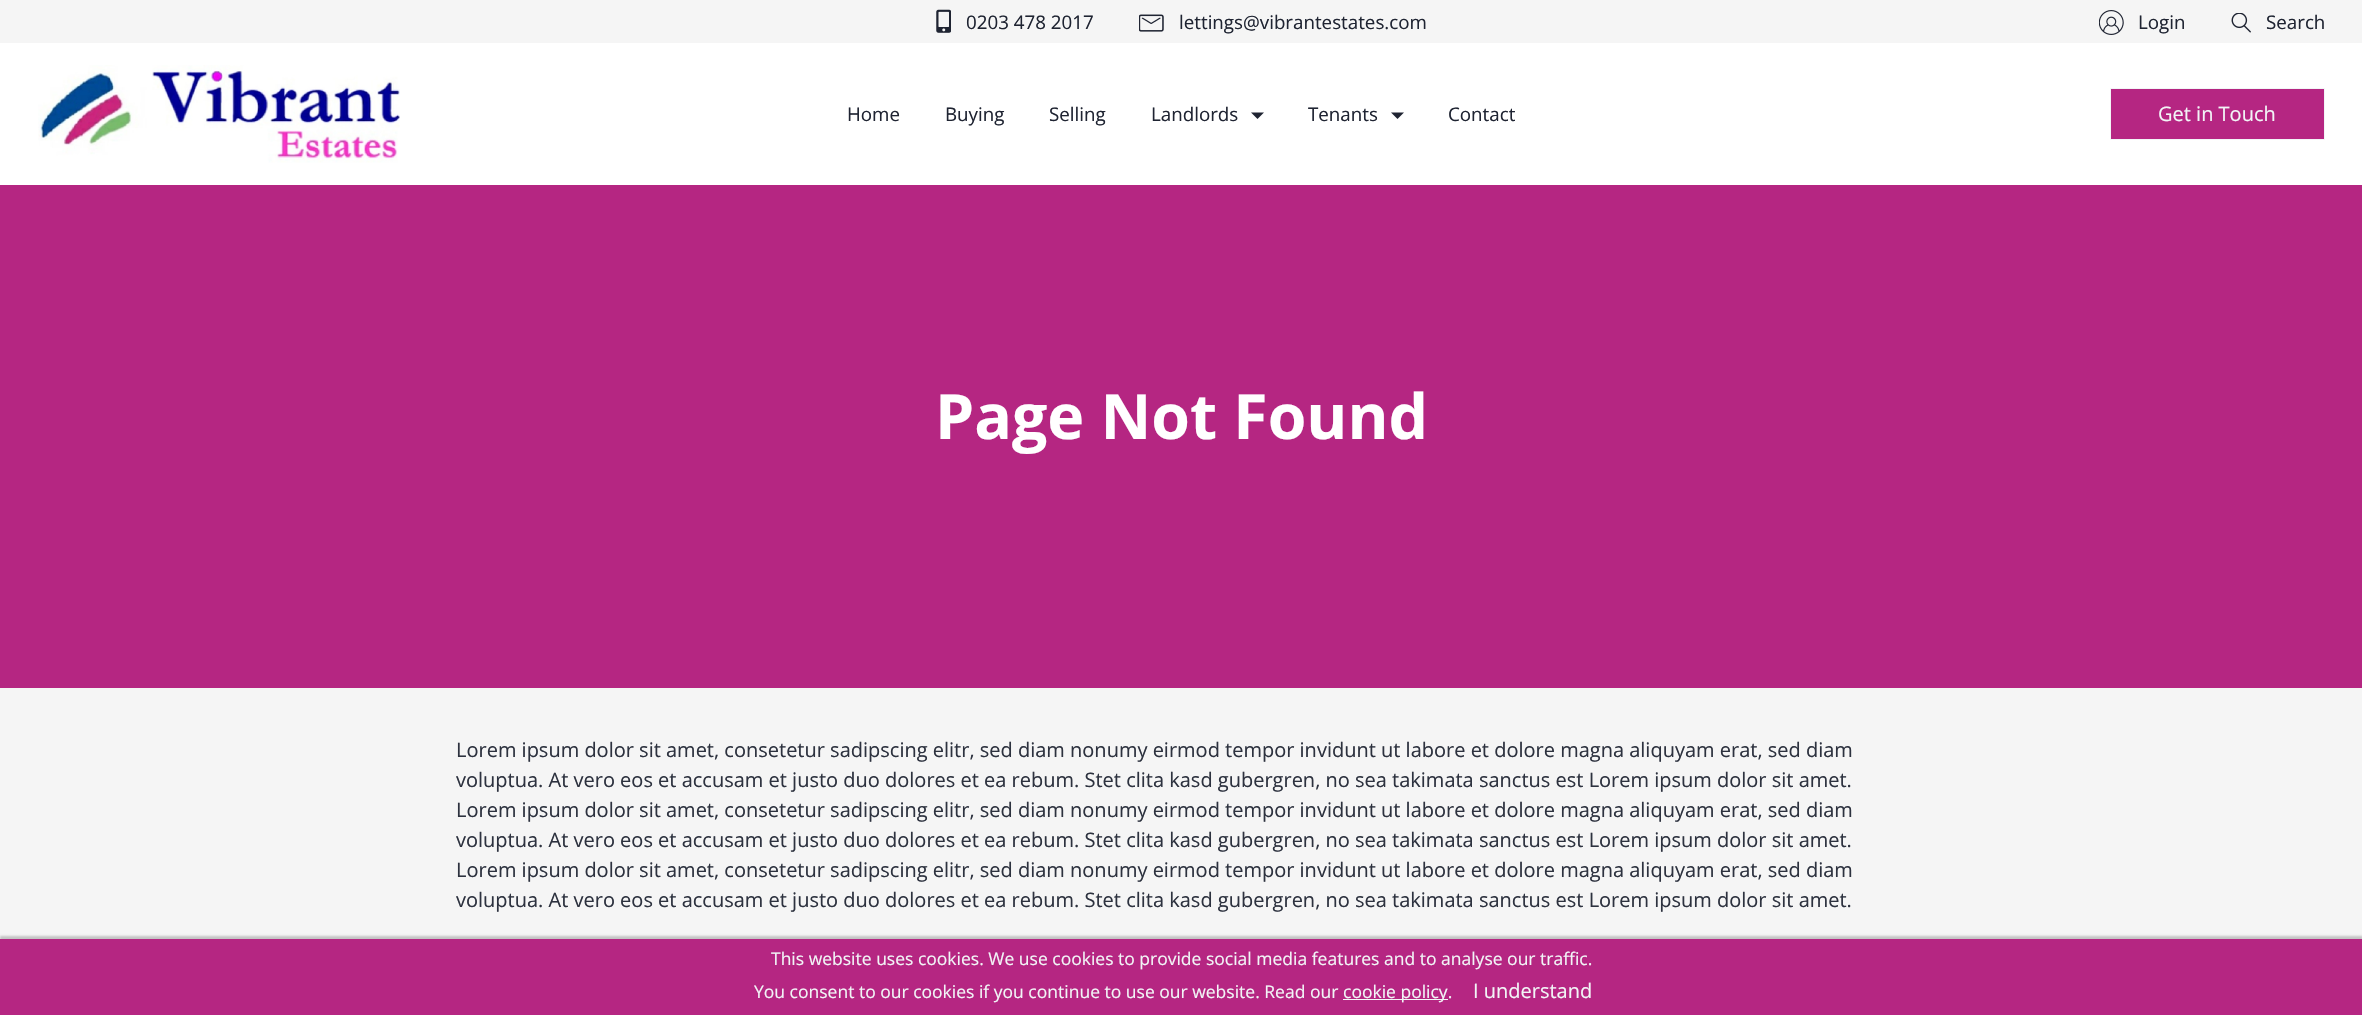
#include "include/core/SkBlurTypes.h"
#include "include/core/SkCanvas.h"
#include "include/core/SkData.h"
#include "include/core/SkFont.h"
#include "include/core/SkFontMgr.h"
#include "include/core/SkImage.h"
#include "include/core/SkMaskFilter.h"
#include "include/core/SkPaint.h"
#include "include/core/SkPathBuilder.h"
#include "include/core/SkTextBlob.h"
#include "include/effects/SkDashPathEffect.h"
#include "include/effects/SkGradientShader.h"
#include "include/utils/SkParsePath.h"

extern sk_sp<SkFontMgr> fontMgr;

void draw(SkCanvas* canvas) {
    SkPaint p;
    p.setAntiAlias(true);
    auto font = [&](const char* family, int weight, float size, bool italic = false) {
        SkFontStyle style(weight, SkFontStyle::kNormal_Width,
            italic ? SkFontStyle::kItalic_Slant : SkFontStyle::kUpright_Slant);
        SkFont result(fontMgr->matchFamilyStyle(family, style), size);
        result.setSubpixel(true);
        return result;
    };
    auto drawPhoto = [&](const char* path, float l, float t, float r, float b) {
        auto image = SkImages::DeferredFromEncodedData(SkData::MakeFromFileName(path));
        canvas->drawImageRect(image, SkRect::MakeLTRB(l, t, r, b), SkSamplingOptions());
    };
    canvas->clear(0xFFFFFFFF);
    p.setColor(0xFFF5F5F5);
    canvas->drawRect(SkRect::MakeLTRB(0, 0, 2362, 43), p);
    drawPhoto("media/1.png", 936, 9, 951, 33);
    auto font1 = font("Open Sans", 400, 18.75f);
    p.setColor(0xFF1F2432);
    canvas->drawString("0203 478 2017", 966, 29, font1, p);
    drawPhoto("media/2.png", 1139, 14, 1164, 32);
    canvas->drawString("lettings@vibrantestates.com", 1179, 29, font1, p);
    drawPhoto("media/3.png", 2099, 10, 2124, 35);
    canvas->drawString("Login", 2138, 29, font1, p);
    drawPhoto("media/4.png", 2231, 13, 2251, 33);
    canvas->drawString("Search", 2266, 29, font1, p);
    drawPhoto("media/5.png", 38, 65, 400, 163);
    {
        const struct { const char* s; float x, y; } items[] = {
            {"Home", 847, 121},
            {"Buying", 945, 121},
            {"Selling", 1049, 121},
            {"Landlords", 1151, 121},
        };
        for (auto [s, x, y] : items) {
            canvas->drawString(s, x, y, font1, p);
        }
    }
    canvas->drawPath(SkPathBuilder().moveTo(1251, 112.5f).lineTo(1264, 112.5f).lineTo(1257.5f, 119).close().detach(), p);
    canvas->drawString("Tenants", 1308, 121, font1, p);
    canvas->drawPath(SkPathBuilder().moveTo(1391, 112.5f).lineTo(1404, 112.5f).lineTo(1397.5f, 119).close().detach(), p);
    canvas->drawString("Contact", 1448, 121, font1, p);
    p.setColor(0xFFB52682);
    canvas->drawRect(SkRect::MakeLTRB(2110.5f, 88.5f, 2324.5f, 139.5f), p);
    p.setStyle(SkPaint::kStroke_Style);
    p.setStrokeWidth(1);
    p.setColor(0xFFF2F5F7);
    canvas->drawRect(SkRect::MakeLTRB(2110.5f, 88.5f, 2324.5f, 139.5f), p);
    auto font2 = font("Open Sans", 400, 20);
    p.setStyle(SkPaint::kFill_Style);
    canvas->drawString("Get in Touch", 2158, 121, font2, p);
    p.setColor(0xFFB52682);
    canvas->drawRect(SkRect::MakeLTRB(0, 185, 2362, 688), p);
    auto font3 = font("Open Sans", 700, 62.5f);
    p.setColor(0xFFFFFFFF);
    canvas->drawString("Page Not Found", 935, 439, font3, p);
    p.setColor(0xFFF5F5F5);
    canvas->drawRect(SkRect::MakeLTRB(0, 688, 2362, 939), p);
    p.setColor(0xFF2D323F);
    {
        const struct { const char* s; float x, y; } items[] = {
            {"Lorem ipsum dolor sit amet, consetetur sadipscing elitr, sed diam nonumy eirmod tempor invidunt ut labore et dolore magna aliquyam erat, sed diam", 456, 757},
            {"voluptua. At vero eos et accusam et justo duo dolores et ea rebum. Stet clita kasd gubergren, no sea takimata sanctus est Lorem ipsum dolor sit amet.", 456, 787},
            {"Lorem ipsum dolor sit amet, consetetur sadipscing elitr, sed diam nonumy eirmod tempor invidunt ut labore et dolore magna aliquyam erat, sed diam", 456, 817},
            {"voluptua. At vero eos et accusam et justo duo dolores et ea rebum. Stet clita kasd gubergren, no sea takimata sanctus est Lorem ipsum dolor sit amet.", 456, 847},
            {"Lorem ipsum dolor sit amet, consetetur sadipscing elitr, sed diam nonumy eirmod tempor invidunt ut labore et dolore magna aliquyam erat, sed diam", 456, 877},
            {"voluptua. At vero eos et accusam et justo duo dolores et ea rebum. Stet clita kasd gubergren, no sea takimata sanctus est Lorem ipsum dolor sit amet.", 456, 907},
        };
        for (auto [s, x, y] : items) {
            canvas->drawString(s, x, y, font2, p);
        }
    }
    p.setColor(0x33000000);
    p.setMaskFilter(SkMaskFilter::MakeBlur(kNormal_SkBlurStyle, 1));
    canvas->drawRect(SkRect::MakeLTRB(0, 936, 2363, 1013), p);
    p.setMaskFilter(nullptr);
    p.setColor(0xFFB52682);
    canvas->drawRect(SkRect::MakeLTRB(0, 939, 2362, 1015), p);
    auto font4 = font("Open Sans", 400, 17.5f);
    p.setColor(0xFFF2F5F7);
    canvas->drawString("This website uses cookies. We use cookies to provide social media features and to analyse our traffic.", 771, 965, font4, p);
    canvas->drawString("You consent to our cookies if you continue to use our website. Read our", 754, 998, font4, p);
    canvas->drawRect(SkRect::MakeLTRB(1343, 999, 1448, 1000), p);
    canvas->drawString("cookie policy.", 1343, 998, font4, p);
    canvas->drawString("I understand", 1473, 998, font2, p);
}
